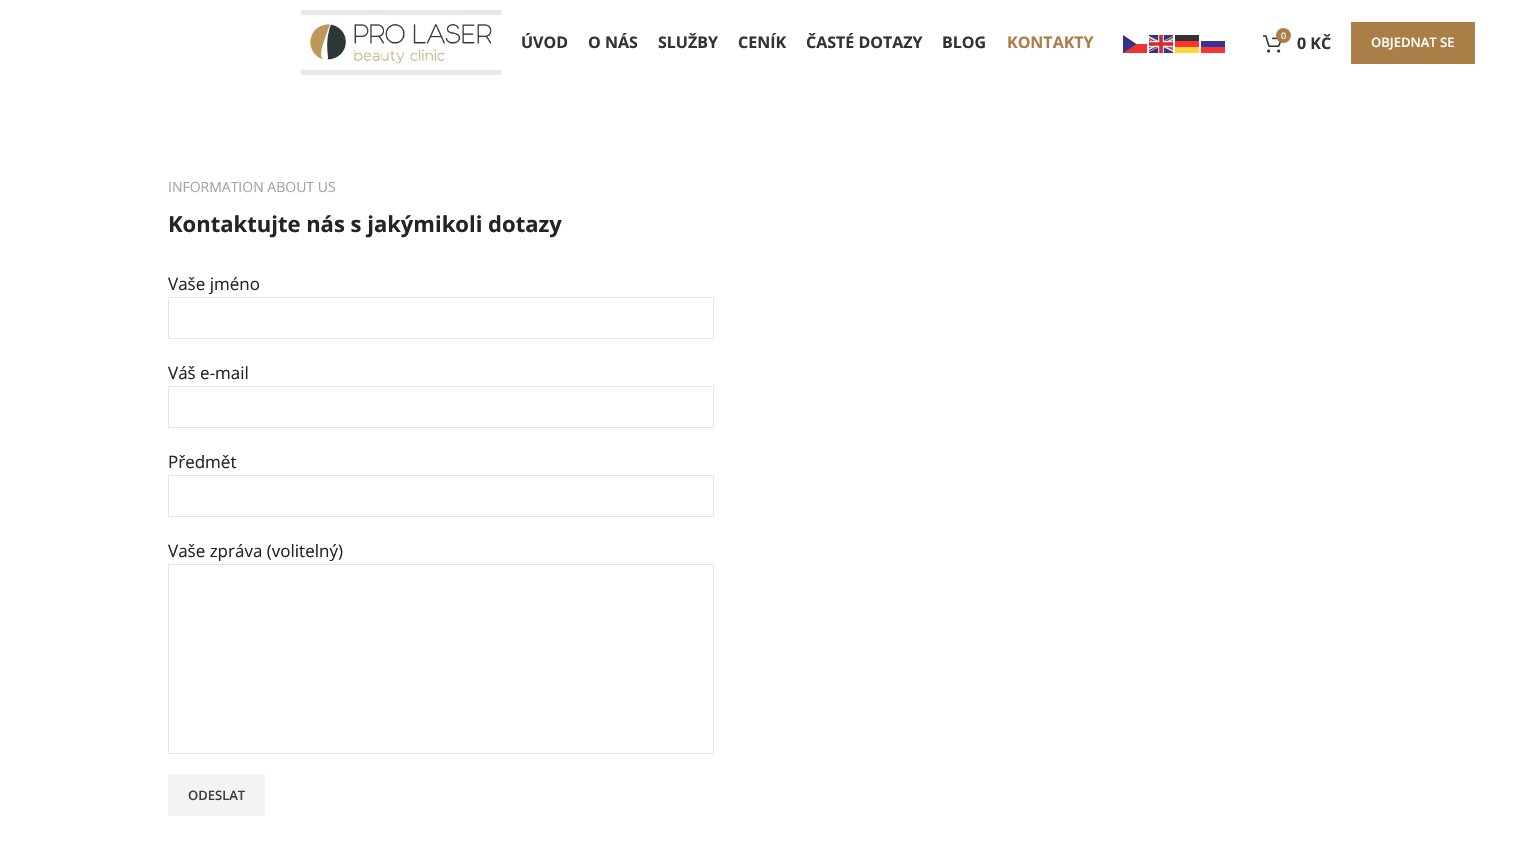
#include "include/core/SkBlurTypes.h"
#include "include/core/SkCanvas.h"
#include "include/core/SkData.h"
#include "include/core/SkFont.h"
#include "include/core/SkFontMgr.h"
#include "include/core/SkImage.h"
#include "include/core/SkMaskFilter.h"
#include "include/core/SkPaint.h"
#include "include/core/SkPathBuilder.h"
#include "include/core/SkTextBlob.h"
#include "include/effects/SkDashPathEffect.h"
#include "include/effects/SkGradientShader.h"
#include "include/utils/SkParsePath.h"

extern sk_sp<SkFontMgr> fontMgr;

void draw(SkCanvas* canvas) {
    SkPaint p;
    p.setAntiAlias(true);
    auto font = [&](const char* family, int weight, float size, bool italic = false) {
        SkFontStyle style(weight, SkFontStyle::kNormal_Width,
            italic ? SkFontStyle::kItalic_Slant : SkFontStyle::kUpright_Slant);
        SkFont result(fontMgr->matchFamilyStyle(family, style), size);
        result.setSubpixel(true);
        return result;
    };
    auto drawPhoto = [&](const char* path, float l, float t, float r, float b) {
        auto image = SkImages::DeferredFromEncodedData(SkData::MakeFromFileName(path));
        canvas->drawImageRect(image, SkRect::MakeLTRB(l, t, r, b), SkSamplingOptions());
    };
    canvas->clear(0xFFFFFFFF);
    p.setColor(0xFFE9E8E5);
    canvas->drawRect(SkRect::MakeLTRB(301, 10, 501, 75), p);
    drawPhoto("media/1.png", 301, 15, 501, 70);
    auto font1 = font("Open Sans", 700, 16);
    p.setColor(0xFF333333);
    {
        const struct { const char* s; float x, y; } items[] = {
            {"ÚVOD", 521, 48},
            {"O NÁS", 588, 48},
            {"SLUŽBY", 658, 48},
            {"CENÍK", 738, 48},
            {"ČASTÉ DOTAZY", 806, 48},
            {"BLOG", 942, 48},
        };
        for (auto [s, x, y] : items) {
            canvas->drawString(s, x, y, font1, p);
        }
    }
    p.setColor(0xFFAA7E47);
    canvas->drawString("KONTAKTY", 1007, 48, font1, p);
    p.setColor(0xFFED3333);
    canvas->drawRect(SkRect::MakeLTRB(1123, 44, 1147, 53), p);
    p.setColor(0xFF33338C);
    canvas->drawPath(SkPathBuilder(SkPathFillType::kEvenOdd).moveTo(1123, 35).lineTo(1136.5f, 44).lineTo(1123, 53).close().detach(), p);
    drawPhoto("media/2.png", 1149, 35, 1173, 53);
    {
        const struct { float l, t, r, b; SkColor color; } items[] = {
            {1175, 35, 1199, 41, 0xFF333333},
            {1175, 41, 1199, 47, 0xFFFF3333},
            {1201, 41, 1225, 47, 0xFF343498},
            {1175, 47, 1199, 53, 0xFFFFD633},
            {1201, 47, 1225, 53, 0xFFFE3434},
        };
        for (auto [l, t, r, b, color] : items) {
            p.setColor(color);
            canvas->drawRect(SkRect::MakeLTRB(l, t, r, b), p);
        }
    }
    drawPhoto("media/3.png", 1263, 35, 1282, 53);
    p.setColor(0xFFAA7E47);
    canvas->drawCircle(1283.5f, 35.5f, 7.5f, p);
    auto font2 = font("Open Sans", 400, 9);
    p.setColor(0xFFFFFFFF);
    canvas->drawString("0", 1281, 39, font2, p);
    p.setColor(0xFF333333);
    canvas->drawString("0 KČ", 1297, 49, font1, p);
    p.setColor(0xFFAA7E47);
    canvas->drawRect(SkRect::MakeLTRB(1351, 22, 1475, 64), p);
    auto font3 = font("Open Sans", 600, 13);
    p.setColor(0xFFFFFFFF);
    canvas->drawString("OBJEDNAT SE", 1371, 47, font3, p);
    auto font4 = font("Open Sans", 400, 14);
    p.setColor(0xFFA5A5A5);
    canvas->drawString("INFORMATION ABOUT US", 168, 192, font4, p);
    auto font5 = font("Open Sans", 700, 22);
    p.setColor(0xFF242424);
    canvas->drawString("Kontaktujte nás s jakýmikoli dotazy", 168, 232, font5, p);
    auto font6 = font("Open Sans", 400, 17);
    canvas->drawString("Vaše jméno", 168, 290, font6, p);
    p.setStyle(SkPaint::kStroke_Style);
    p.setStrokeWidth(1);
    p.setColor(0xFFE6E6E6);
    canvas->drawRect(SkRect::MakeLTRB(168.5f, 297.5f, 713.5f, 338.5f), p);
    p.setStyle(SkPaint::kFill_Style);
    p.setColor(0xFF242424);
    canvas->drawString("Váš e-mail", 168, 379, font6, p);
    p.setStyle(SkPaint::kStroke_Style);
    p.setColor(0xFFE6E6E6);
    canvas->drawRect(SkRect::MakeLTRB(168.5f, 386.5f, 713.5f, 427.5f), p);
    p.setStyle(SkPaint::kFill_Style);
    p.setColor(0xFF242424);
    canvas->drawString("Předmět", 168, 468, font6, p);
    p.setStyle(SkPaint::kStroke_Style);
    p.setColor(0xFFE6E6E6);
    canvas->drawRect(SkRect::MakeLTRB(168.5f, 475.5f, 713.5f, 516.5f), p);
    p.setStyle(SkPaint::kFill_Style);
    p.setColor(0xFF242424);
    canvas->drawString("Vaše zpráva (volitelný)", 168, 557, font6, p);
    p.setStyle(SkPaint::kStroke_Style);
    p.setColor(0xFFE6E6E6);
    canvas->drawRect(SkRect::MakeLTRB(168.5f, 564.5f, 713.5f, 753.5f), p);
    p.setStyle(SkPaint::kFill_Style);
    p.setColor(0xFFF3F3F3);
    canvas->drawRect(SkRect::MakeLTRB(168, 774, 265, 816), p);
    p.setColor(0xFF3E3E3E);
    canvas->drawString("ODESLAT", 188, 800, font3, p);
}
